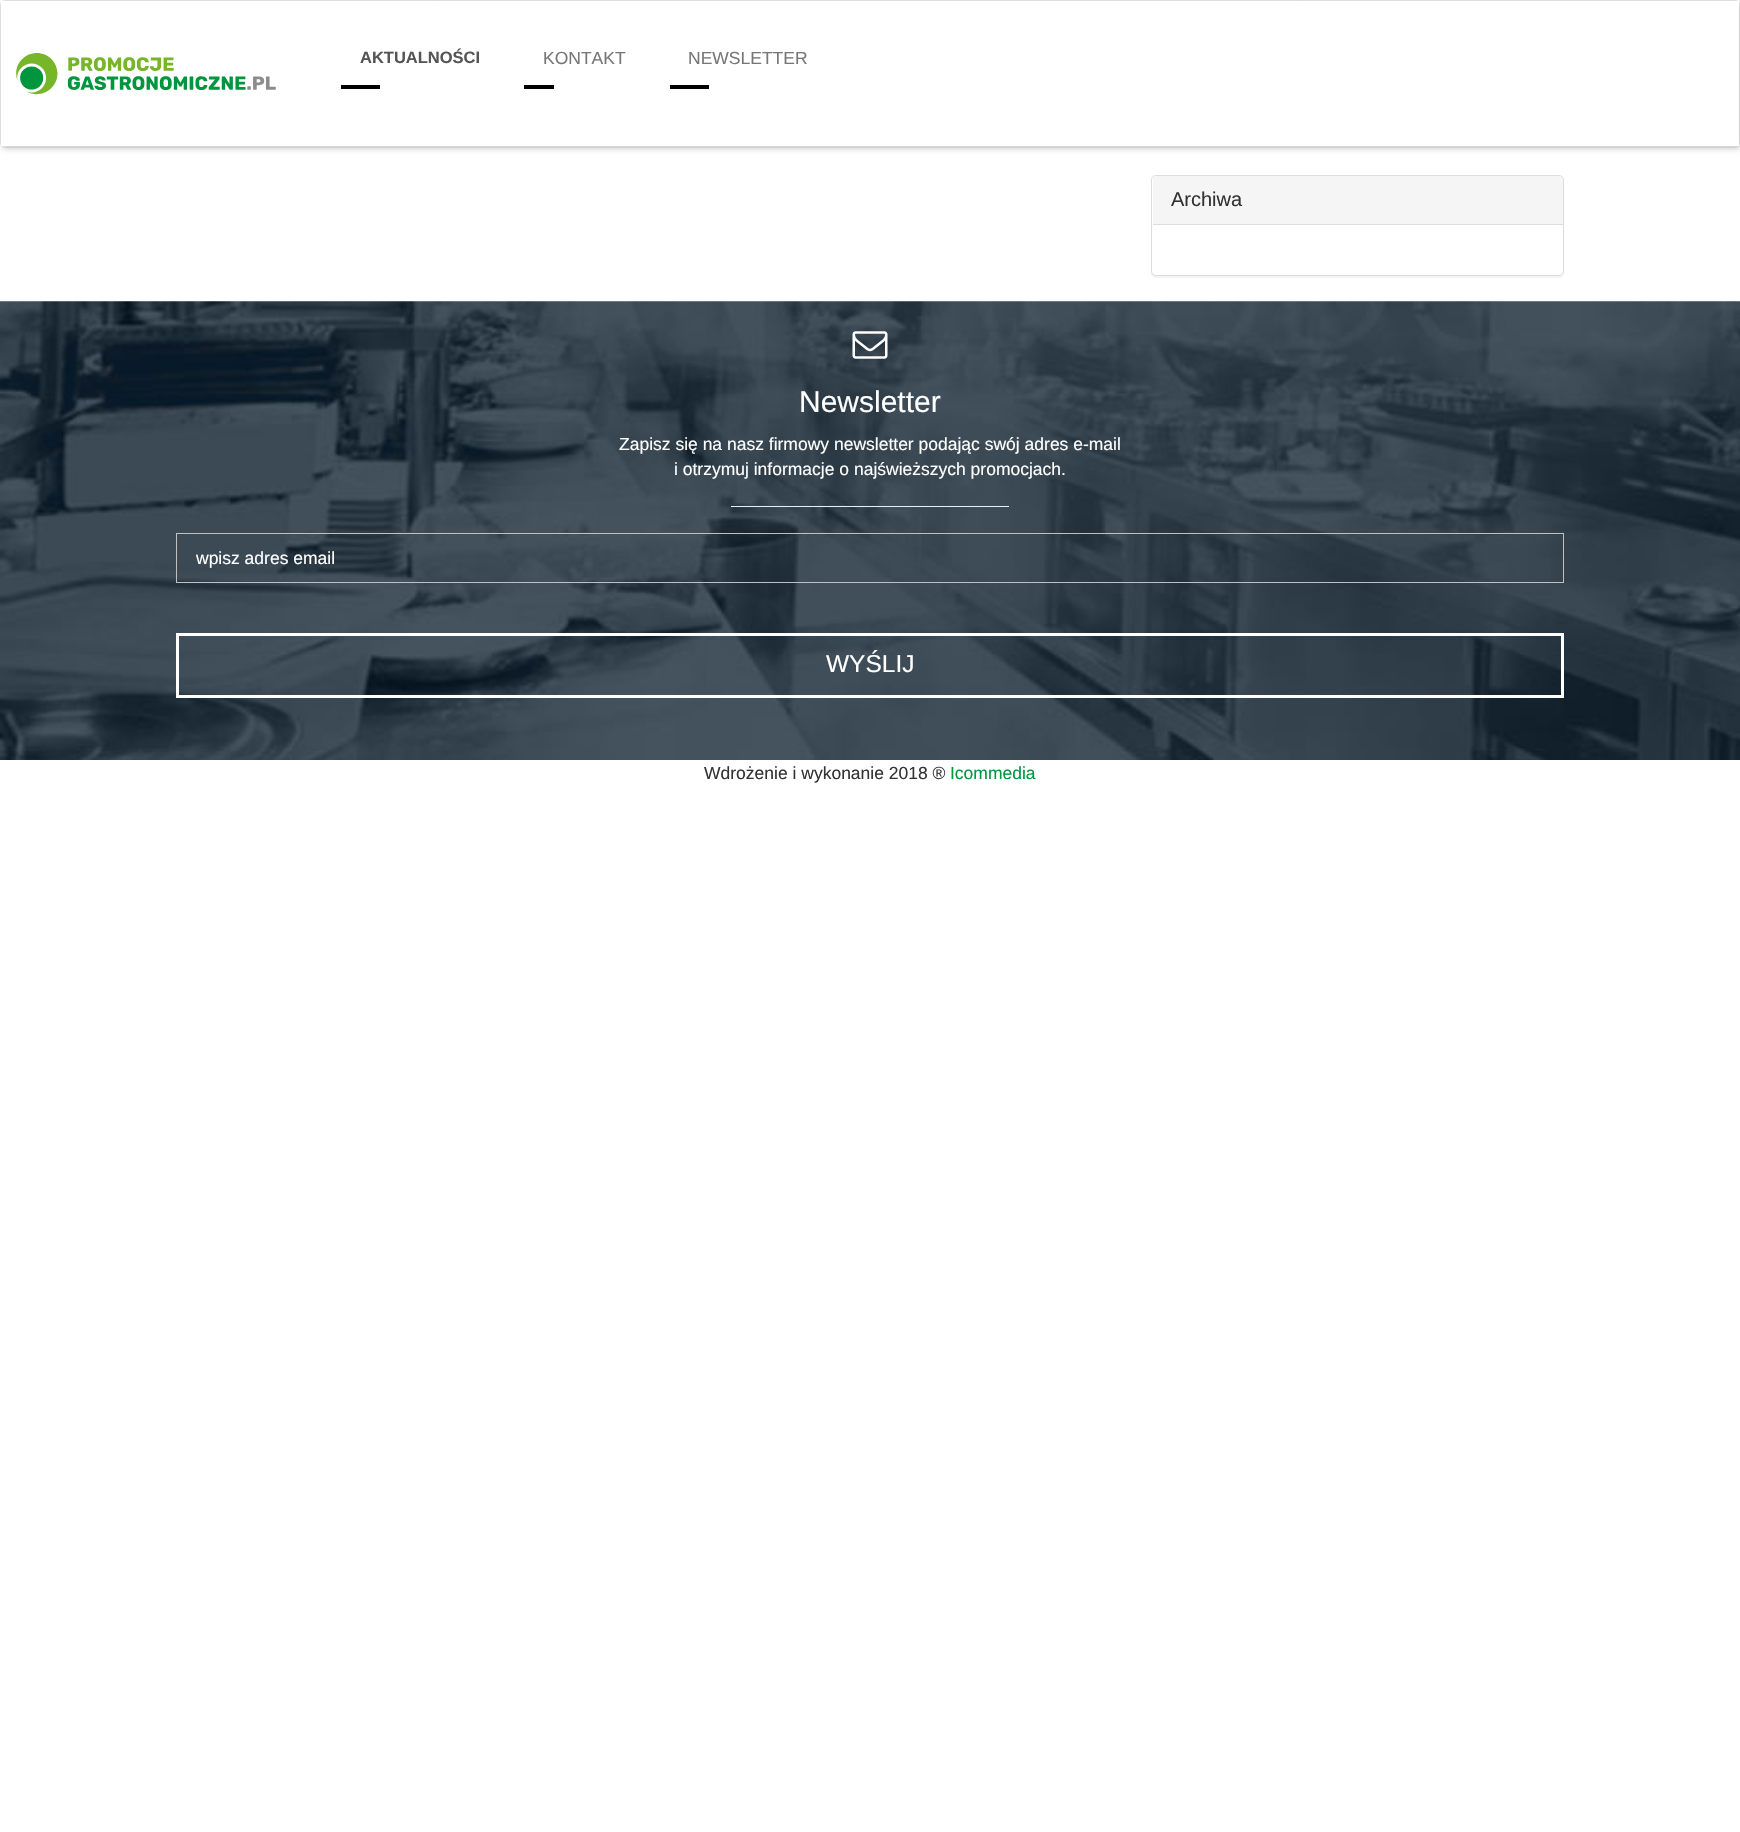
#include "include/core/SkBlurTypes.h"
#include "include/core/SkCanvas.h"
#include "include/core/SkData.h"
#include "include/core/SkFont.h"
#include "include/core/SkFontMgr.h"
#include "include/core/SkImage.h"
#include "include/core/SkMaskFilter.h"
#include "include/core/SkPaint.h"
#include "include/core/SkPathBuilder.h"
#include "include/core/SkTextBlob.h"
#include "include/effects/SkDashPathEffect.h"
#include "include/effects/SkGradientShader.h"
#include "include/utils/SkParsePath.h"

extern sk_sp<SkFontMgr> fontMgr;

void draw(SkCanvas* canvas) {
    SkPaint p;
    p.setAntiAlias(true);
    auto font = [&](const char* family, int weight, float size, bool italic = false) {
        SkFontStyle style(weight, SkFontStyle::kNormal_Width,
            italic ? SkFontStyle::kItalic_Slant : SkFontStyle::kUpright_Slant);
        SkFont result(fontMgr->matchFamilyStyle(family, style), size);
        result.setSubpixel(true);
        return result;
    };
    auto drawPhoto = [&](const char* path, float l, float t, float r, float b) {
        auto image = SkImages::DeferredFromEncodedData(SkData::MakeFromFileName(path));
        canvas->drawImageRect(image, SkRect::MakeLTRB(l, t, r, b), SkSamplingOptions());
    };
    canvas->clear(0xFFFFFFFF);
    p.setStyle(SkPaint::kStroke_Style);
    p.setStrokeWidth(1);
    p.setColor(0xFFE7E7E7);
    canvas->drawRoundRect(SkRect::MakeLTRB(0.5f, 0.5f, 1739.5f, 147.5f), 4.5f, 4.5f, p);
    p.setStyle(SkPaint::kFill_Style);
    p.setColor(0xFFC0C0C0);
    p.setMaskFilter(SkMaskFilter::MakeBlur(kNormal_SkBlurStyle, 3));
    canvas->drawRect(SkRect::MakeLTRB(3, 3, 1740, 148), p);
    p.setMaskFilter(nullptr);
    p.setColor(0xFFFFFFFF);
    canvas->drawRect(SkRect::MakeLTRB(1, 1, 1739, 146), p);
    drawPhoto("media/1.png", 16, 53, 276, 95);
    auto font1 = font("Liberation Sans", 700, 16.5f);
    p.setColor(0xFF555555);
    canvas->drawString("AKTUALNOŚCI", 360, 63, font1, p);
    p.setColor(0xFF000000);
    canvas->drawRect(SkRect::MakeLTRB(341, 85, 380, 89), p);
    auto font2 = font("Liberation Sans", 400, 17.5f);
    p.setColor(0xFF777777);
    canvas->drawString("KONTAKT", 543, 64, font2, p);
    p.setColor(0xFF000000);
    canvas->drawRect(SkRect::MakeLTRB(524, 85, 554, 89), p);
    p.setColor(0xFF777777);
    canvas->drawString("NEWSLETTER", 688, 64, font2, p);
    p.setColor(0xFF000000);
    canvas->drawRect(SkRect::MakeLTRB(670, 85, 709, 89), p);
    p.setColor(0x0D000000);
    p.setMaskFilter(SkMaskFilter::MakeBlur(kNormal_SkBlurStyle, 0.5f));
    canvas->drawRoundRect(SkRect::MakeLTRB(1151, 176, 1564, 278), 5, 5, p);
    p.setMaskFilter(nullptr);
    p.setColor(0xFFFFFFFF);
    canvas->drawRoundRect(SkRect::MakeLTRB(1151.5f, 175.5f, 1563.5f, 275.5f), 4.5f, 4.5f, p);
    p.setStyle(SkPaint::kStroke_Style);
    p.setColor(0xFFDDDDDD);
    canvas->drawRoundRect(SkRect::MakeLTRB(1151.5f, 175.5f, 1563.5f, 275.5f), 4.5f, 4.5f, p);
    p.setStyle(SkPaint::kFill_Style);
    p.setColor(0xFFF5F5F5);
    canvas->drawPath(SkPathBuilder().moveTo(1157, 176).lineTo(1559, 176).cubicTo(1561, 176, 1563, 178, 1563, 180).lineTo(1563, 225).lineTo(1153, 225).lineTo(1153, 180).cubicTo(1153, 178, 1155, 176, 1157, 176).close().detach(), p);
    p.setColor(0xFFDDDDDD);
    canvas->drawRect(SkRect::MakeLTRB(1153, 224, 1563, 225), p);
    auto font3 = font("Liberation Sans", 400, 20);
    p.setColor(0xFF333333);
    canvas->drawString("Archiwa", 1171, 206, font3, p);
    drawPhoto("media/2.png", 0, 301, 1740, 760);
    drawPhoto("media/3.png", 852, 331, 888, 359);
    auto font4 = font("Liberation Sans", 400, 30);
    p.setColor(0xFFFFFFFF);
    canvas->drawString("Newsletter", 799, 412, font4, p);
    canvas->drawString("Zapisz się na nasz firmowy newsletter podając swój adres e-mail", 619, 450, font2, p);
    canvas->drawString("i otrzymuj informacje o najświeższych promocjach.", 674, 475, font2, p);
    p.setColor(0xFFEEEEEE);
    canvas->drawRect(SkRect::MakeLTRB(731, 506, 1009, 507), p);
    p.setStyle(SkPaint::kStroke_Style);
    p.setColor(0xFFC0C0C0);
    canvas->drawRect(SkRect::MakeLTRB(176.5f, 533.5f, 1563.5f, 582.5f), p);
    p.setStyle(SkPaint::kFill_Style);
    p.setColor(0xFFFFFFFF);
    canvas->drawString("wpisz adres email", 196, 564, font2, p);
    p.setStyle(SkPaint::kStroke_Style);
    p.setStrokeWidth(3);
    canvas->drawRect(SkRect::MakeLTRB(177.5f, 634.5f, 1562.5f, 696.5f), p);
    auto font5 = font("Liberation Sans", 400, 24.5f);
    p.setStyle(SkPaint::kFill_Style);
    canvas->drawString("WYŚLIJ", 826, 672, font5, p);
    p.setColor(0xFF333333);
    canvas->drawString("Wdrożenie i wykonanie 2018 ®", 704, 779, font2, p);
    p.setColor(0xFF009640);
    canvas->drawString("Icommedia", 950, 779, font2, p);
}
